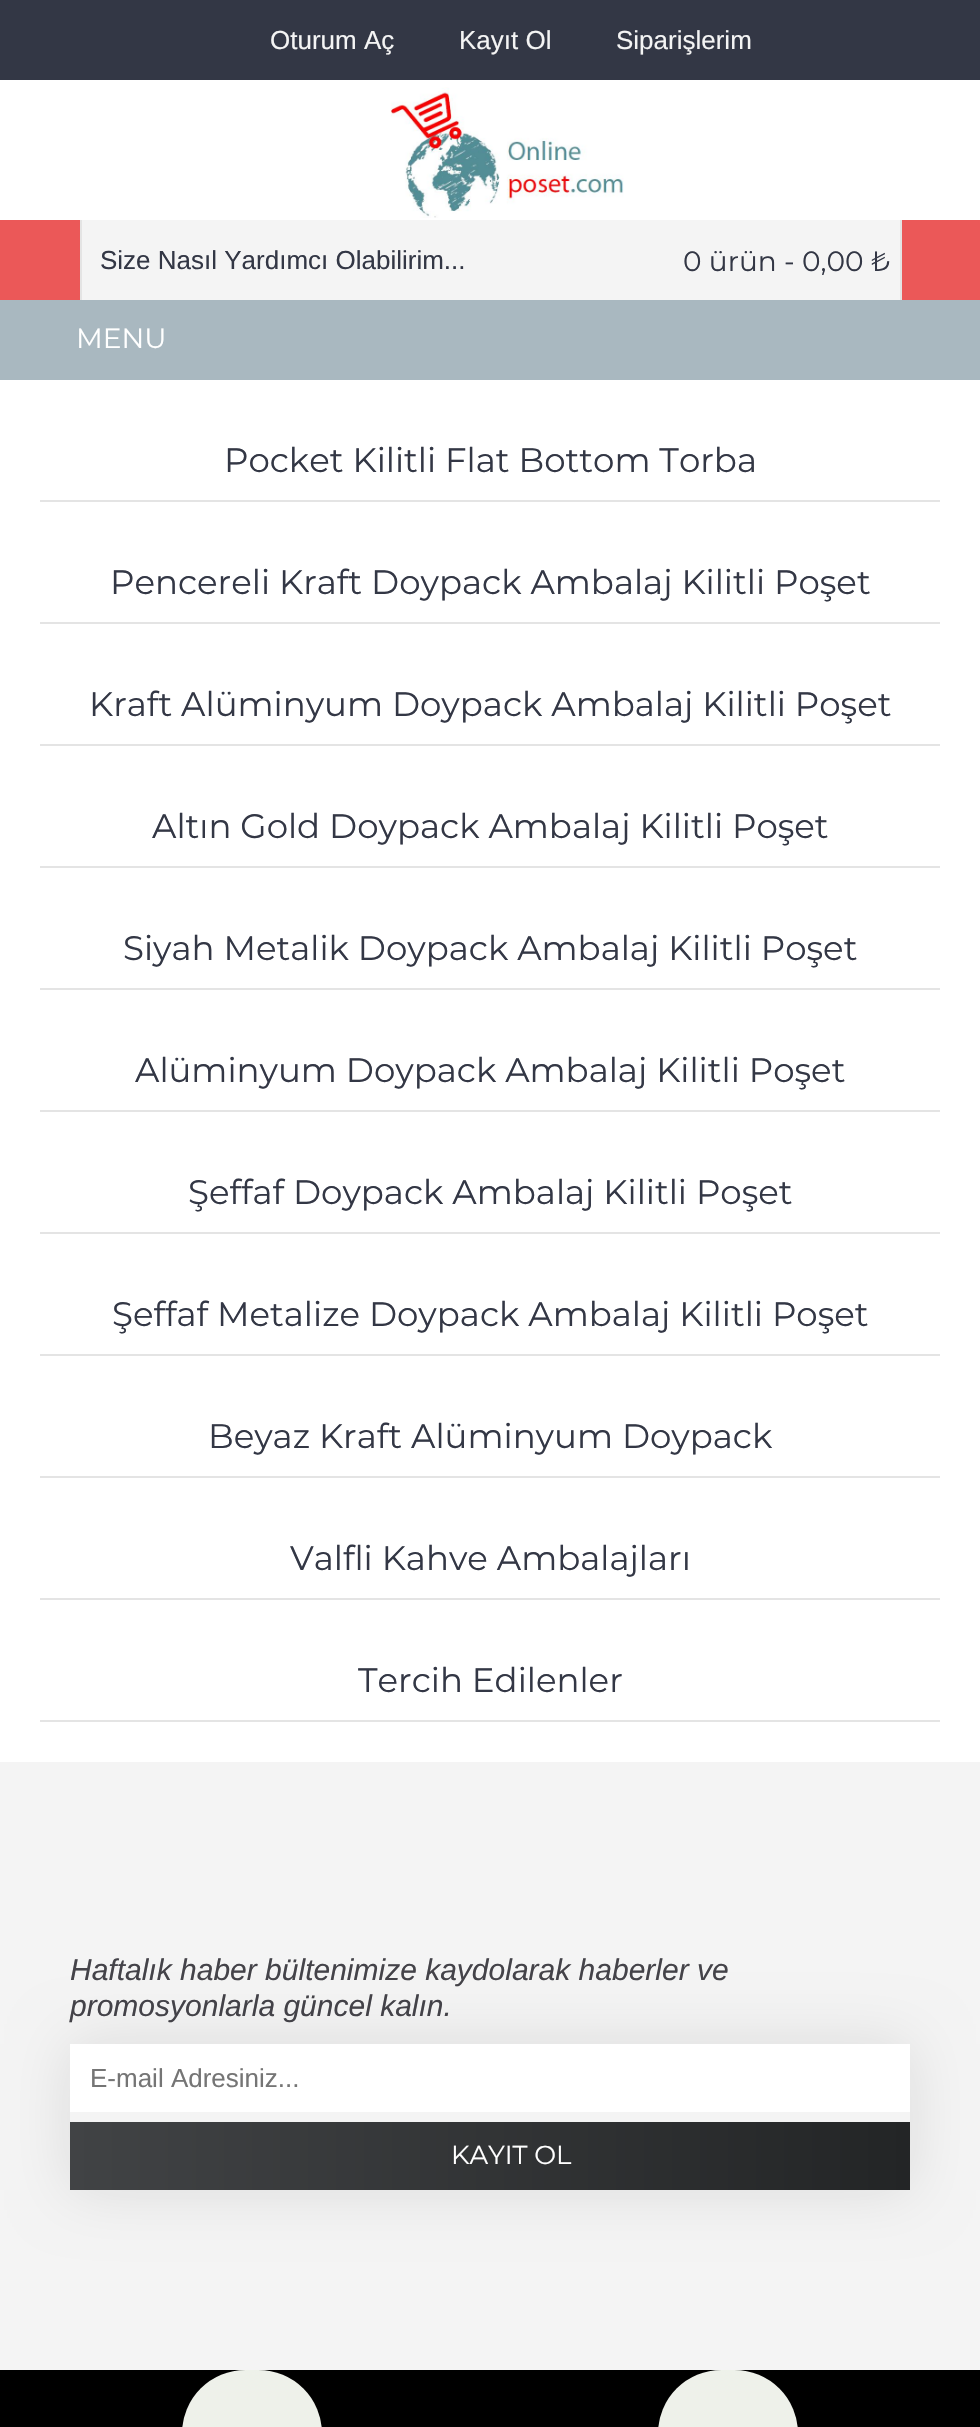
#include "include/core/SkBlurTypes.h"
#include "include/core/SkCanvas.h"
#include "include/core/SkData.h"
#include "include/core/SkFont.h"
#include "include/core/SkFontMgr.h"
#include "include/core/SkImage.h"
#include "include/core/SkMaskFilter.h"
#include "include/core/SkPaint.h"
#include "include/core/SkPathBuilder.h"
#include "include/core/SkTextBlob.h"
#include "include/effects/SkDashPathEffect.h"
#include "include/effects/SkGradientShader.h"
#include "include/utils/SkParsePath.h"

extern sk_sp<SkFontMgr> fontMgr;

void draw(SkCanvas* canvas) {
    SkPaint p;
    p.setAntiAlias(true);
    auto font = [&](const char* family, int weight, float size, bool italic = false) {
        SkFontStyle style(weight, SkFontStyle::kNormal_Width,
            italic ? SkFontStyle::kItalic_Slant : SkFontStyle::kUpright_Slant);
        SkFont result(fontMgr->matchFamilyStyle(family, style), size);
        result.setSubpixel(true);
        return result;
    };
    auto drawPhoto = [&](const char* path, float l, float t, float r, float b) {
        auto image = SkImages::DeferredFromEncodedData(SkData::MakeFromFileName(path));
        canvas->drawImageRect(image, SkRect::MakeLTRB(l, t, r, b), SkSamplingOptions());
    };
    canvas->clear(0xFFF4F4F4);
    p.setColor(0xFFFFFFFF);
    canvas->drawRect(SkRect::MakeLTRB(0, 80, 980, 220), p);
    p.setColor(0xFF333745);
    canvas->drawRect(SkRect::MakeLTRB(0, 0, 980, 80), p);
    auto font1 = font("Liberation Sans", 400, 26);
    p.setColor(0xFFF4F4F4);
    {
        const struct { const char* s; float x, y; } items[] = {
            {"Oturum Aç", 270, 49},
            {"Kayıt Ol", 459, 49},
            {"Siparişlerim", 616, 49},
        };
        for (auto [s, x, y] : items) {
            canvas->drawString(s, x, y, font1, p);
        }
    }
    drawPhoto("media/1.png", 390, 87, 624, 218);
    p.setColor(0xFFEB5858);
    canvas->drawRect(SkRect::MakeLTRB(0, 220, 80, 300), p);
    p.setColor(0xFFE4E4E4);
    canvas->drawRect(SkRect::MakeLTRB(80, 220, 82, 300), p);
    p.setColor(0xFF333745);
    canvas->drawString("Size Nasıl Yardımcı Olabilirim...", 100, 269, font1, p);
    auto font2 = font("Montserrat", 400, 28);
    canvas->drawString("0 ürün - 0,00 ₺", 683, 271, font2, p);
    {
        const struct { float l, t, r, b; SkColor color; } items[] = {
            {902, 220, 980, 300, 0xFFEB5858},
            {900, 220, 902, 300, 0xFFE4E4E4},
            {0, 300, 980, 380, 0xFFA9B8C0},
        };
        for (auto [l, t, r, b, color] : items) {
            p.setColor(color);
            canvas->drawRect(SkRect::MakeLTRB(l, t, r, b), p);
        }
    }
    p.setColor(0xFFFFFFFF);
    canvas->drawString("MENU", 76, 348, font2, p);
    canvas->drawRect(SkRect::MakeLTRB(0, 380, 980, 1762), p);
    p.setColor(0xFFE4E4E4);
    canvas->drawRect(SkRect::MakeLTRB(40, 500, 940, 502), p);
    auto font3 = font("Montserrat", 400, 34);
    p.setColor(0xFF333745);
    canvas->drawString("Pocket Kilitli Flat Bottom Torba", 224, 472, font3, p);
    p.setColor(0xFFE4E4E4);
    canvas->drawRect(SkRect::MakeLTRB(40, 622, 940, 624), p);
    p.setColor(0xFF333745);
    canvas->drawString("Pencereli Kraft Doypack Ambalaj Kilitli Poşet", 110, 594, font3, p);
    p.setColor(0xFFE4E4E4);
    canvas->drawRect(SkRect::MakeLTRB(40, 744, 940, 746), p);
    p.setColor(0xFF333745);
    canvas->drawString("Kraft Alüminyum Doypack Ambalaj Kilitli Poşet", 89, 716, font3, p);
    p.setColor(0xFFE4E4E4);
    canvas->drawRect(SkRect::MakeLTRB(40, 866, 940, 868), p);
    p.setColor(0xFF333745);
    canvas->drawString("Altın Gold Doypack Ambalaj Kilitli Poşet", 152, 838, font3, p);
    p.setColor(0xFFE4E4E4);
    canvas->drawRect(SkRect::MakeLTRB(40, 988, 940, 990), p);
    p.setColor(0xFF333745);
    canvas->drawString("Siyah Metalik Doypack Ambalaj Kilitli Poşet", 123, 960, font3, p);
    p.setColor(0xFFE4E4E4);
    canvas->drawRect(SkRect::MakeLTRB(40, 1110, 940, 1112), p);
    p.setColor(0xFF333745);
    canvas->drawString("Alüminyum Doypack Ambalaj Kilitli Poşet", 135, 1082, font3, p);
    p.setColor(0xFFE4E4E4);
    canvas->drawRect(SkRect::MakeLTRB(40, 1232, 940, 1234), p);
    p.setColor(0xFF333745);
    canvas->drawString("Şeffaf Doypack Ambalaj Kilitli Poşet", 188, 1204, font3, p);
    p.setColor(0xFFE4E4E4);
    canvas->drawRect(SkRect::MakeLTRB(40, 1354, 940, 1356), p);
    p.setColor(0xFF333745);
    canvas->drawString("Şeffaf Metalize Doypack Ambalaj Kilitli Poşet", 112, 1326, font3, p);
    p.setColor(0xFFE4E4E4);
    canvas->drawRect(SkRect::MakeLTRB(40, 1476, 940, 1478), p);
    p.setColor(0xFF333745);
    canvas->drawString("Beyaz Kraft Alüminyum Doypack", 208, 1448, font3, p);
    p.setColor(0xFFE4E4E4);
    canvas->drawRect(SkRect::MakeLTRB(40, 1598, 940, 1600), p);
    p.setColor(0xFF333745);
    canvas->drawString("Valfli Kahve Ambalajları", 290, 1570, font3, p);
    p.setColor(0xFFE4E4E4);
    canvas->drawRect(SkRect::MakeLTRB(40, 1720, 940, 1722), p);
    p.setColor(0xFF333745);
    canvas->drawString("Tercih Edilenler", 358, 1692, font3, p);
    auto font4 = font("Liberation Sans", 400, 30, true);
    p.setColor(0xFF444349);
    canvas->drawString("Haftalık haber bültenimize kaydolarak haberler ve", 70, 1980, font4, p);
    canvas->drawString("promosyonlarla güncel kalın.", 70, 2016, font4, p);
    canvas->save();
    canvas->clipPath(SkPathBuilder(SkPathFillType::kEvenOdd).moveTo(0, 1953).lineTo(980, 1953).lineTo(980, 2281).lineTo(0, 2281).close().moveTo(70, 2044).lineTo(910, 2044).lineTo(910, 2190).lineTo(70, 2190).close().detach(), true);
    p.setColor(0x1A000000);
    p.setMaskFilter(SkMaskFilter::MakeBlur(kNormal_SkBlurStyle, 30));
    canvas->drawRect(SkRect::MakeLTRB(70, 2044, 910, 2190), p);
    p.setMaskFilter(nullptr);
    canvas->restore();
    p.setColor(0xFFFFFFFF);
    canvas->drawRect(SkRect::MakeLTRB(70, 2044, 910, 2112), p);
    p.setColor(0xFF757575);
    canvas->drawString("E-mail Adresiniz...", 90, 2087, font1, p);
    {
        const SkColor colors[] = {0xFF232526, 0xFF414345};
        const float stops[] = {0, 1};
        const SkPoint ends[] = {{910, 2156}, {70, 2156}};
        p.setShader(SkGradientShader::MakeLinear(ends, colors, stops, 2, SkTileMode::kClamp));
        p.setAlpha(255);
    }
    canvas->drawRect(SkRect::MakeLTRB(70, 2122, 910, 2190), p);
    auto font5 = font("Montserrat", 400, 26);
    p.setShader(nullptr);
    p.setColor(0xFFFFFFFF);
    canvas->drawString("KAYIT OL", 451, 2164, font5, p);
    p.setColor(0xFF000000);
    canvas->drawRect(SkRect::MakeLTRB(0, 2370, 980, 2427), p);
    p.setColor(0xFFEEF1EA);
    canvas->drawRoundRect(SkRect::MakeLTRB(182, 2370, 322, 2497), 70, 70, p);
    canvas->drawRoundRect(SkRect::MakeLTRB(658, 2370, 798, 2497), 70, 70, p);
}
